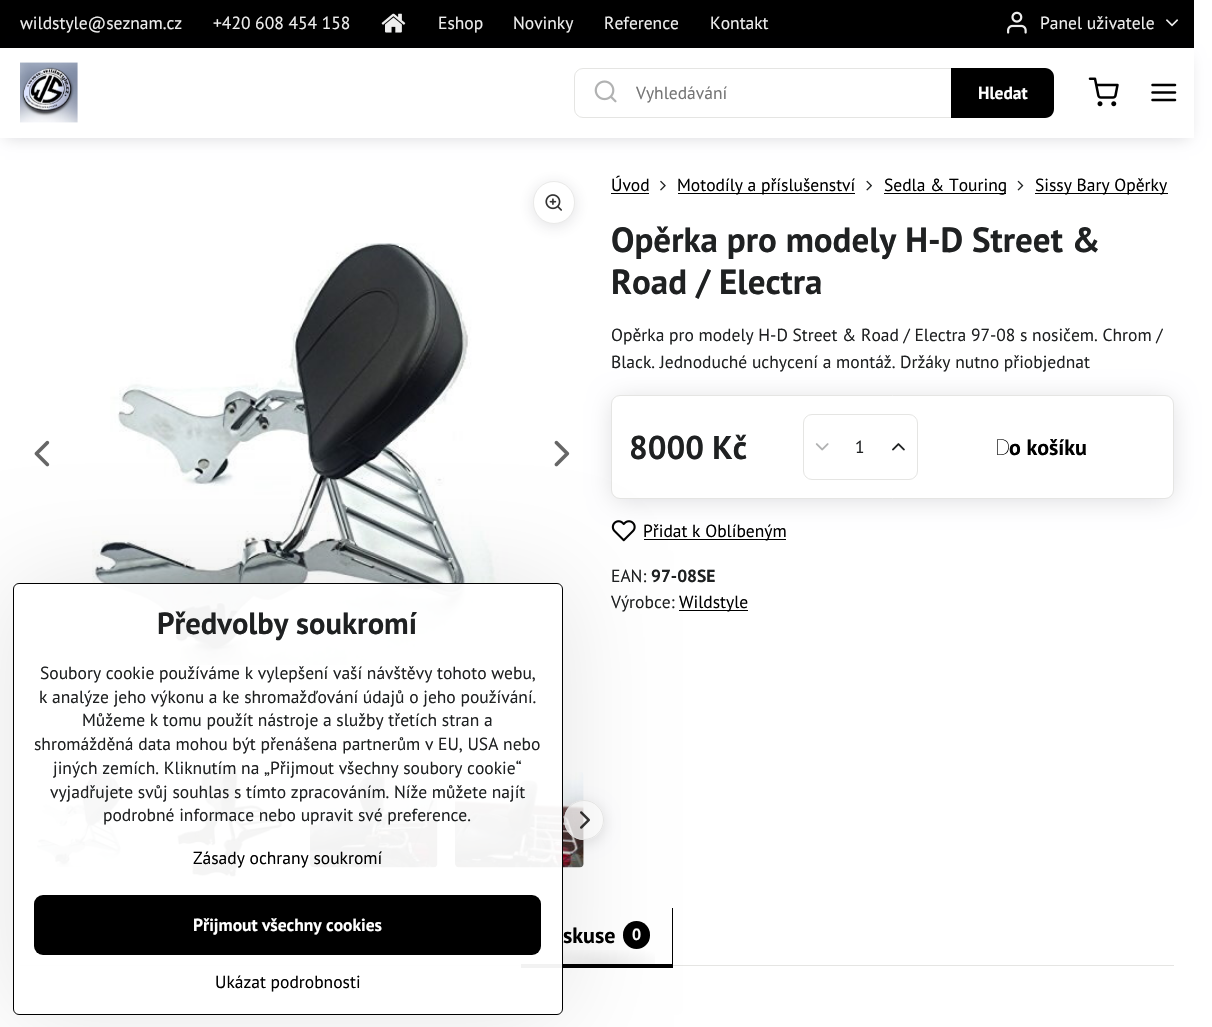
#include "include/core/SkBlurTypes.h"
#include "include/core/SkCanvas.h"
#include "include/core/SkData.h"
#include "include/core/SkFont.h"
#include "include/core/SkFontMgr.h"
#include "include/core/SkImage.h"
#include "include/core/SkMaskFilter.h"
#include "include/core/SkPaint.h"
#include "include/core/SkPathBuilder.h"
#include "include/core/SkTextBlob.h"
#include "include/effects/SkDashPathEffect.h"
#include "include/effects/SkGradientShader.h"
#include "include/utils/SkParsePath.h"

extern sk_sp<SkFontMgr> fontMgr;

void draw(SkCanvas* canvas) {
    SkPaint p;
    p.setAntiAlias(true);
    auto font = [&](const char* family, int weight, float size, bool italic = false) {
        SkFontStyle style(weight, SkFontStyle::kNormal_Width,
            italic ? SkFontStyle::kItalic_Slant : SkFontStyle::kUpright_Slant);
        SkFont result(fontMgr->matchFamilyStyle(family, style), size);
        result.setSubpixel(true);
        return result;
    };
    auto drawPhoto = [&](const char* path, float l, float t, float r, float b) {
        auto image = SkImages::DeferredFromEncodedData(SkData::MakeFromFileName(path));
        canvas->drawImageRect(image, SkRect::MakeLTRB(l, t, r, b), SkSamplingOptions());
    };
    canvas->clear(0xFFFFFFFF);
    p.setColor(0xFF000000);
    canvas->drawRect(SkRect::MakeLTRB(0, 0, 1194, 48), p);
    auto font1 = font("PT Sans", 400, 17.5f);
    p.setColor(0xFFEEEEEE);
    canvas->drawString("wildstyle@seznam.cz", 20, 29, font1, p);
    canvas->drawString("+420 608 454 158", 213, 29, font1, p);
    drawPhoto("media/1.png", 381, 13, 406, 33);
    {
        const struct { const char* s; float x, y; } items[] = {
            {"Eshop", 438, 29},
            {"Novinky", 513, 29},
            {"Reference", 604, 29},
            {"Kontakt", 710, 29},
        };
        for (auto [s, x, y] : items) {
            canvas->drawString(s, x, y, font1, p);
        }
    }
    drawPhoto("media/2.png", 1007, 11, 1027, 34);
    canvas->drawString("Panel uživatele", 1040, 29, font1, p);
    drawPhoto("media/3.png", 1166, 19, 1179, 27);
    p.setColor(0x26000014);
    p.setMaskFilter(SkMaskFilter::MakeBlur(kNormal_SkBlurStyle, 7.5f));
    canvas->drawRect(SkRect::MakeLTRB(5, 58, 1189, 138), p);
    p.setMaskFilter(nullptr);
    p.setColor(0xFFFFFFFF);
    canvas->drawRect(SkRect::MakeLTRB(0, 48, 1194, 138), p);
    drawPhoto("media/4.png", 20, 62, 78, 123);
    p.setStyle(SkPaint::kStroke_Style);
    p.setStrokeWidth(1);
    p.setColor(0xFFE5E5E3);
    canvas->drawRoundRect(SkRect::MakeLTRB(574.5f, 68.5f, 1053.5f, 117.5f), 8.5f, 8.5f, p);
    drawPhoto("media/5.png", 594, 80, 617, 103);
    p.setStyle(SkPaint::kFill_Style);
    p.setColor(0xFF757575);
    canvas->drawString("Vyhledávání", 636, 99, font1, p);
    p.setColor(0xFF000000);
    canvas->drawPath(SkPathBuilder().moveTo(951, 68).lineTo(1045, 68).cubicTo(1050, 68, 1054, 72, 1054, 77).lineTo(1054, 109).cubicTo(1054, 114, 1050, 118, 1045, 118).lineTo(951, 118).close().detach(), p);
    auto font2 = font("PT Sans", 700, 17.5f);
    p.setColor(0xFFFFFFFF);
    canvas->drawString("Hledat", 978, 99, font2, p);
    drawPhoto("media/6.png", 1088, 77, 1119, 107);
    drawPhoto("media/7.png", 1151, 83, 1177, 102);
    drawPhoto("media/8.png", 34, 440, 50, 467);
    drawPhoto("media/10.png", 92, 243, 541, 665);
    p.setColor(0x26333343);
    p.setMaskFilter(SkMaskFilter::MakeBlur(kNormal_SkBlurStyle, 7.5f));
    canvas->drawRoundRect(SkRect::MakeLTRB(533, 184, 575, 226), 21, 21, p);
    p.setMaskFilter(nullptr);
    p.setColor(0xFFFFFFFF);
    canvas->drawRoundRect(SkRect::MakeLTRB(533.5f, 181.5f, 574.5f, 223.5f), 20.5f, 20.5f, p);
    p.setStyle(SkPaint::kStroke_Style);
    p.setColor(0xFFEAEAE9);
    canvas->drawRoundRect(SkRect::MakeLTRB(533.5f, 181.5f, 574.5f, 223.5f), 20.5f, 20.5f, p);
    drawPhoto("media/9.png", 545, 194, 562, 211);
    drawPhoto("media/11.png", 554, 440, 570, 467);
    drawPhoto("media/12.png", 37, 771, 137, 868);
    drawPhoto("media/13.png", 173, 763, 284, 883);
    drawPhoto("media/14.png", 310, 771, 438, 868);
    drawPhoto("media/15.png", 455, 772, 584, 868);
    canvas->save();
    canvas->clipPath(SkPathBuilder(SkPathFillType::kEvenOdd).moveTo(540, 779).lineTo(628, 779).lineTo(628, 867).lineTo(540, 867).close().moveTo(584, 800).cubicTo(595, 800, 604, 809, 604, 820).cubicTo(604, 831, 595, 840, 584, 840).cubicTo(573, 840, 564, 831, 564, 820).cubicTo(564, 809, 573, 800, 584, 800).close().detach(), true);
    p.setStyle(SkPaint::kFill_Style);
    p.setColor(0x1F000014);
    p.setMaskFilter(SkMaskFilter::MakeBlur(kNormal_SkBlurStyle, 7.5f));
    canvas->drawRoundRect(SkRect::MakeLTRB(564, 803, 604, 843), 20, 20, p);
    p.setMaskFilter(nullptr);
    canvas->restore();
    p.setColor(0xCCFFFFFF);
    canvas->drawCircle(584, 820, 20, p);
    p.setStyle(SkPaint::kStroke_Style);
    p.setColor(0xCCE5E5E3);
    canvas->drawCircle(584, 820, 19.5f, p);
    drawPhoto("media/16.png", 580, 811, 590, 829);
    p.setStyle(SkPaint::kFill_Style);
    p.setColor(0xFF000000);
    canvas->drawString("Úvod", 611, 191, font1, p);
    canvas->drawRect(SkRect::MakeLTRB(611, 193, 649, 194), p);
    drawPhoto("media/17.png", 660, 180, 666, 191);
    canvas->drawRect(SkRect::MakeLTRB(678, 193, 855, 194), p);
    canvas->drawString("Motodíly a příslušenství", 677, 191, font1, p);
    drawPhoto("media/18.png", 866, 180, 872, 191);
    canvas->drawRect(SkRect::MakeLTRB(884, 193, 1006, 194), p);
    canvas->drawString("Sedla & Touring", 884, 191, font1, p);
    drawPhoto("media/19.png", 1017, 180, 1024, 191);
    canvas->drawRect(SkRect::MakeLTRB(1035, 193, 1168, 194), p);
    canvas->drawString("Sissy Bary Opěrky", 1035, 191, font1, p);
    auto font3 = font("PT Sans", 700, 35);
    p.setColor(0xFF1F2122);
    canvas->drawString("Opěrka pro modely H-D Street &", 611, 252, font3, p);
    canvas->drawString("Road / Electra", 611, 294, font3, p);
    canvas->drawString("Opěrka pro modely H-D Street & Road / Electra 97-08 s nosičem. Chrom /", 611, 341, font1, p);
    canvas->drawString("Black. Jednoduché uchycení a montáž. Držáky nutno přiobjednat", 611, 368, font1, p);
    drawPhoto("media/22.png", 611, 520, 636, 542);
    p.setColor(0x26000014);
    p.setMaskFilter(SkMaskFilter::MakeBlur(kNormal_SkBlurStyle, 13));
    canvas->drawRoundRect(SkRect::MakeLTRB(614, 400, 1171, 499), 6, 6, p);
    p.setMaskFilter(nullptr);
    p.setColor(0xFFFFFFFF);
    canvas->drawRoundRect(SkRect::MakeLTRB(611.5f, 395.5f, 1173.5f, 498.5f), 8.5f, 8.5f, p);
    p.setStyle(SkPaint::kStroke_Style);
    p.setColor(0xFFE5E5E3);
    canvas->drawRoundRect(SkRect::MakeLTRB(611.5f, 395.5f, 1173.5f, 498.5f), 8.5f, 8.5f, p);
    auto font4 = font("PT Sans", 700, 33);
    p.setStyle(SkPaint::kFill_Style);
    p.setColor(0xFF1F2122);
    canvas->drawString("8000 Kč", 629, 459, font4, p);
    p.setStyle(SkPaint::kStroke_Style);
    p.setColor(0xFFE5E5E3);
    canvas->drawRoundRect(SkRect::MakeLTRB(803.5f, 414.5f, 917.5f, 479.5f), 8.5f, 8.5f, p);
    drawPhoto("media/20.png", 815, 443, 829, 451);
    p.setStyle(SkPaint::kFill_Style);
    p.setColor(0xFF1F2122);
    canvas->drawString("1", 855, 453, font1, p);
    drawPhoto("media/21.png", 892, 443, 905, 451);
    auto font5 = font("Noto Sans", 100, 22);
    p.setColor(0xFF000000);
    canvas->drawString("D", 995, 455, font5, p);
    auto font6 = font("PT Sans", 700, 22);
    canvas->drawString("o košíku", 1009, 455, font6, p);
    canvas->drawRect(SkRect::MakeLTRB(644, 539, 786, 540), p);
    canvas->drawString("Přidat k Oblíbeným", 643, 537, font1, p);
    p.setColor(0xFF1F2122);
    canvas->drawString("EAN:", 611, 582, font1, p);
    canvas->drawString("97-08SE", 651, 582, font2, p);
    canvas->drawString("Výrobce:", 611, 608, font1, p);
    p.setColor(0xFF000000);
    canvas->drawRect(SkRect::MakeLTRB(679, 610, 748, 611), p);
    canvas->drawString("Wildstyle", 679, 608, font1, p);
    p.setColor(0xFFE5E5E3);
    canvas->drawRect(SkRect::MakeLTRB(20, 965, 1174, 966), p);
    p.setColor(0xFF000000);
    canvas->drawPath(SkPathBuilder().moveTo(521, 908).lineTo(521, 968).lineTo(673, 968).lineTo(673, 908).lineTo(672, 908).lineTo(672, 965).lineTo(521, 965).close().detach(), p);
    {
        const SkColor colors[] = {0x17000000, 0x00000000};
        const float stops[] = {0, 1};
        SkMatrix m = SkMatrix::Translate(597, 965).preScale(76, 20);
        p.setShader(SkGradientShader::MakeRadial({0, 0}, 1, colors, stops, 2, SkTileMode::kClamp, 0, &m));
        p.setAlpha(255);
    }
    canvas->drawRect(SkRect::MakeLTRB(539, 950, 655, 964), p);
    p.setShader(nullptr);
    p.setColor(0xFF000000);
    canvas->drawRect(SkRect::MakeLTRB(521, 964, 673, 965), p);
    canvas->drawString("skuse", 563, 943, font6, p);
    canvas->drawRoundRect(SkRect::MakeLTRB(623, 921, 650, 949), 13.5f, 13.5f, p);
    auto font7 = font("PT Sans", 700, 16);
    p.setColor(0xFFFFFFFF);
    canvas->drawString("0", 632, 940, font7, p);
    canvas->save();
    canvas->clipPath(SkPathBuilder(SkPathFillType::kEvenOdd).moveTo(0, 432).lineTo(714, 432).lineTo(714, 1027).lineTo(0, 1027).close().moveTo(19, 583).lineTo(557, 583).cubicTo(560.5f, 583, 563, 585.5f, 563, 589).lineTo(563, 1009).cubicTo(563, 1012.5f, 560.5f, 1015, 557, 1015).lineTo(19, 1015).cubicTo(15.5f, 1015, 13, 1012.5f, 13, 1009).lineTo(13, 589).cubicTo(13, 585.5f, 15.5f, 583, 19, 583).close().detach(), true);
    p.setColor(0x1A000000);
    p.setMaskFilter(SkMaskFilter::MakeBlur(kNormal_SkBlurStyle, 50));
    canvas->drawRoundRect(SkRect::MakeLTRB(13, 583, 563, 1015), 6, 6, p);
    p.setMaskFilter(nullptr);
    canvas->restore();
    p.setColor(0xF2FFFFFF);
    canvas->drawRoundRect(SkRect::MakeLTRB(13.5f, 583.5f, 562.5f, 1014.5f), 5.5f, 5.5f, p);
    p.setStyle(SkPaint::kStroke_Style);
    p.setColor(0xFF000000);
    canvas->drawRoundRect(SkRect::MakeLTRB(13.5f, 583.5f, 562.5f, 1014.5f), 5.5f, 5.5f, p);
    auto font8 = font("PT Sans", 700, 30.6f);
    p.setStyle(SkPaint::kFill_Style);
    p.setColor(0xFF1F2122);
    canvas->drawString("Předvolby soukromí", 157, 634, font8, p);
    {
        const struct { const char* s; float x, y; } items[] = {
            {"Soubory cookie používáme k vylepšení vaší návštěvy tohoto webu,", 40, 679},
            {"k analýze jeho výkonu a ke shromažďování údajů o jeho používání.", 39, 703},
            {"Můžeme k tomu použít nástroje a služby třetích stran a", 82, 726},
            {"shromážděná data mohou být přenášena partnerům v EU, USA nebo", 34, 750},
            {"jiných zemích. Kliknutím na „Přijmout všechny soubory cookie“", 53, 774},
            {"vyjadřujete svůj souhlas s tímto zpracováním. Níže můžete najít", 50, 798},
            {"podrobné informace nebo upravit své preference.", 103, 821},
        };
        for (auto [s, x, y] : items) {
            canvas->drawString(s, x, y, font1, p);
        }
    }
    p.setColor(0xFF000000);
    canvas->drawString("Zásady ochrany soukromí", 193, 864, font1, p);
    canvas->drawRoundRect(SkRect::MakeLTRB(34, 895, 541, 955), 9, 9, p);
    p.setColor(0xFFFFFFFF);
    canvas->drawString("Přijmout všechny cookies", 193, 931, font2, p);
    p.setColor(0xFF000000);
    canvas->drawString("Ukázat podrobnosti", 215, 988, font1, p);
}
